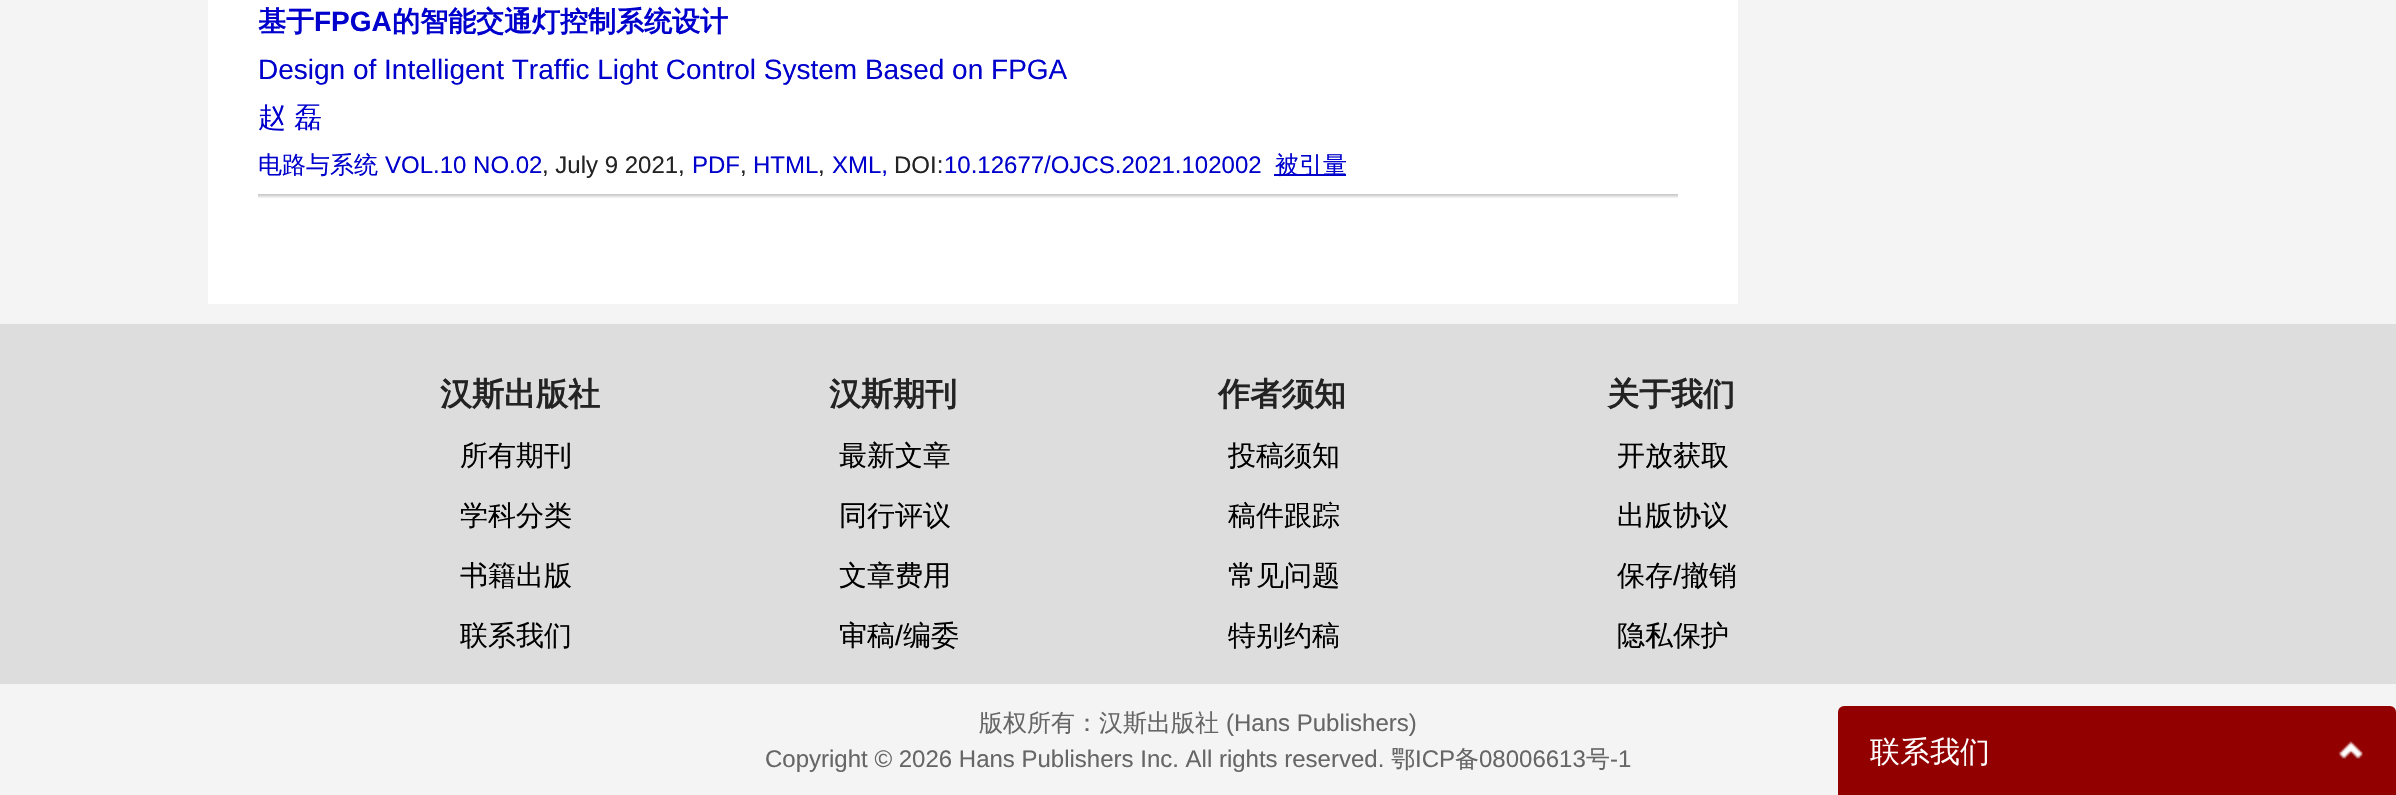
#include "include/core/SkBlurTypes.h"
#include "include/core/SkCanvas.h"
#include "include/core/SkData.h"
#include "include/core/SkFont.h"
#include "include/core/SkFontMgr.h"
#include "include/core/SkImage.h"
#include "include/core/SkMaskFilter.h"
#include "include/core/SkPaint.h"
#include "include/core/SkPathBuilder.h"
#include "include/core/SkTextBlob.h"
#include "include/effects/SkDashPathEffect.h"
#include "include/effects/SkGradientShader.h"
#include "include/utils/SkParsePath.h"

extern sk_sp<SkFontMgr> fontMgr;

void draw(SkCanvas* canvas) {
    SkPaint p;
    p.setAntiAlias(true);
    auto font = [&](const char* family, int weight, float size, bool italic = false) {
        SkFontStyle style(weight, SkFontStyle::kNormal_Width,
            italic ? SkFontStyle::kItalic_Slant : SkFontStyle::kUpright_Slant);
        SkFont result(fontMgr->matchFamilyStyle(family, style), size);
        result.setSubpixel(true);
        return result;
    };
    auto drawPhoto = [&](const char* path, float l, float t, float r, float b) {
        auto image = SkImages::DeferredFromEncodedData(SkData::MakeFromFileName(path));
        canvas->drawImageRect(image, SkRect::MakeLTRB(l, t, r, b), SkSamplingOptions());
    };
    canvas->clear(0xFFF4F4F4);
    p.setColor(0xFFFFFFFF);
    canvas->drawRect(SkRect::MakeLTRB(208, 0, 1738, 304), p);
    drawPhoto("media/1.png", 258, 194, 1678, 198);
    auto font1 = font("WenQuanYi Zen Hei", 700, 28);
    p.setColor(0xFF0000CC);
    canvas->drawString("基于", 258, 31, font1, p);
    auto font2 = font("Liberation Sans", 700, 28);
    canvas->drawString("FPGA", 314, 31, font2, p);
    canvas->drawString("的智能交通灯控制系统设计", 392, 31, font1, p);
    auto font3 = font("Liberation Sans", 400, 28);
    canvas->drawString("Design of Intelligent Traffic Light Control System Based on FPGA", 258, 79, font3, p);
    auto font4 = font("WenQuanYi Zen Hei", 500, 28);
    canvas->drawString("赵", 258, 127, font4, p);
    canvas->drawString("磊", 294, 127, font4, p);
    auto font5 = font("WenQuanYi Zen Hei", 500, 24);
    canvas->drawString("电路与系统", 258, 173, font5, p);
    auto font6 = font("Liberation Sans", 400, 24);
    canvas->drawString("VOL.10 NO.02", 385, 173, font6, p);
    p.setColor(0xFF232323);
    canvas->drawString(", July 9 2021,", 542, 173, font6, p);
    p.setColor(0xFF0000CC);
    canvas->drawString("PDF", 692, 173, font6, p);
    p.setColor(0xFF232323);
    canvas->drawString(",", 740, 173, font6, p);
    p.setColor(0xFF0000CC);
    canvas->drawString("HTML", 753, 173, font6, p);
    p.setColor(0xFF232323);
    canvas->drawString(",", 818, 173, font6, p);
    p.setColor(0xFF0000CC);
    canvas->drawString("XML,", 832, 173, font6, p);
    p.setColor(0xFF232323);
    canvas->drawString("DOI:", 894, 173, font6, p);
    p.setColor(0xFF0000CC);
    canvas->drawString("10.12677/OJCS.2021.102002", 944, 173, font6, p);
    canvas->drawRect(SkRect::MakeLTRB(1274, 174, 1346, 176), p);
    canvas->drawString("被引量", 1275, 173, font5, p);
    p.setColor(0xFFDDDDDD);
    canvas->drawRect(SkRect::MakeLTRB(0, 324, 2396, 684), p);
    auto font7 = font("WenQuanYi Zen Hei", 700, 32);
    p.setColor(0xFF232323);
    canvas->drawString("汉斯出版社", 440, 405, font7, p);
    p.setColor(0xFF000000);
    {
        const struct { const char* s; float x, y; } items[] = {
            {"所有期刊", 460, 465},
            {"学科分类", 460, 525},
            {"书籍出版", 460, 585},
            {"联系我们", 460, 645},
        };
        for (auto [s, x, y] : items) {
            canvas->drawString(s, x, y, font4, p);
        }
    }
    p.setColor(0xFF232323);
    canvas->drawString("汉斯期刊", 829, 405, font7, p);
    p.setColor(0xFF000000);
    {
        const struct { const char* s; float x, y; } items[] = {
            {"最新文章", 839, 465},
            {"同行评议", 839, 525},
            {"文章费用", 839, 585},
            {"审稿", 839, 645},
        };
        for (auto [s, x, y] : items) {
            canvas->drawString(s, x, y, font4, p);
        }
    }
    canvas->drawString("/", 895, 645, font3, p);
    canvas->drawString("编委", 903, 645, font4, p);
    p.setColor(0xFF232323);
    canvas->drawString("作者须知", 1218, 405, font7, p);
    p.setColor(0xFF000000);
    {
        const struct { const char* s; float x, y; } items[] = {
            {"投稿须知", 1228, 465},
            {"稿件跟踪", 1228, 525},
            {"常见问题", 1228, 585},
            {"特别约稿", 1228, 645},
        };
        for (auto [s, x, y] : items) {
            canvas->drawString(s, x, y, font4, p);
        }
    }
    p.setColor(0xFF232323);
    canvas->drawString("关于我们", 1607, 405, font7, p);
    p.setColor(0xFF000000);
    {
        const struct { const char* s; float x, y; } items[] = {
            {"开放获取", 1617, 465},
            {"出版协议", 1617, 525},
            {"保存", 1617, 585},
        };
        for (auto [s, x, y] : items) {
            canvas->drawString(s, x, y, font4, p);
        }
    }
    canvas->drawString("/", 1673, 585, font3, p);
    canvas->drawString("撤销", 1681, 585, font4, p);
    canvas->drawString("隐私保护", 1617, 645, font4, p);
    p.setColor(0xFF666666);
    canvas->drawString("版权所有：汉斯出版社", 979, 731, font5, p);
    canvas->drawString("(Hans Publishers)", 1226, 731, font6, p);
    canvas->drawString("Copyright © 2026 Hans Publishers Inc. All rights reserved.", 765, 767, font6, p);
    canvas->drawString("鄂", 1391, 767, font5, p);
    canvas->drawString("ICP", 1415, 767, font6, p);
    canvas->drawString("备", 1455, 767, font5, p);
    canvas->drawString("08006613", 1479, 767, font6, p);
    canvas->drawString("号", 1586, 767, font5, p);
    canvas->drawString("-1", 1610, 767, font6, p);
    drawPhoto("media/2.png", 1838, 706, 2396, 795);
}
